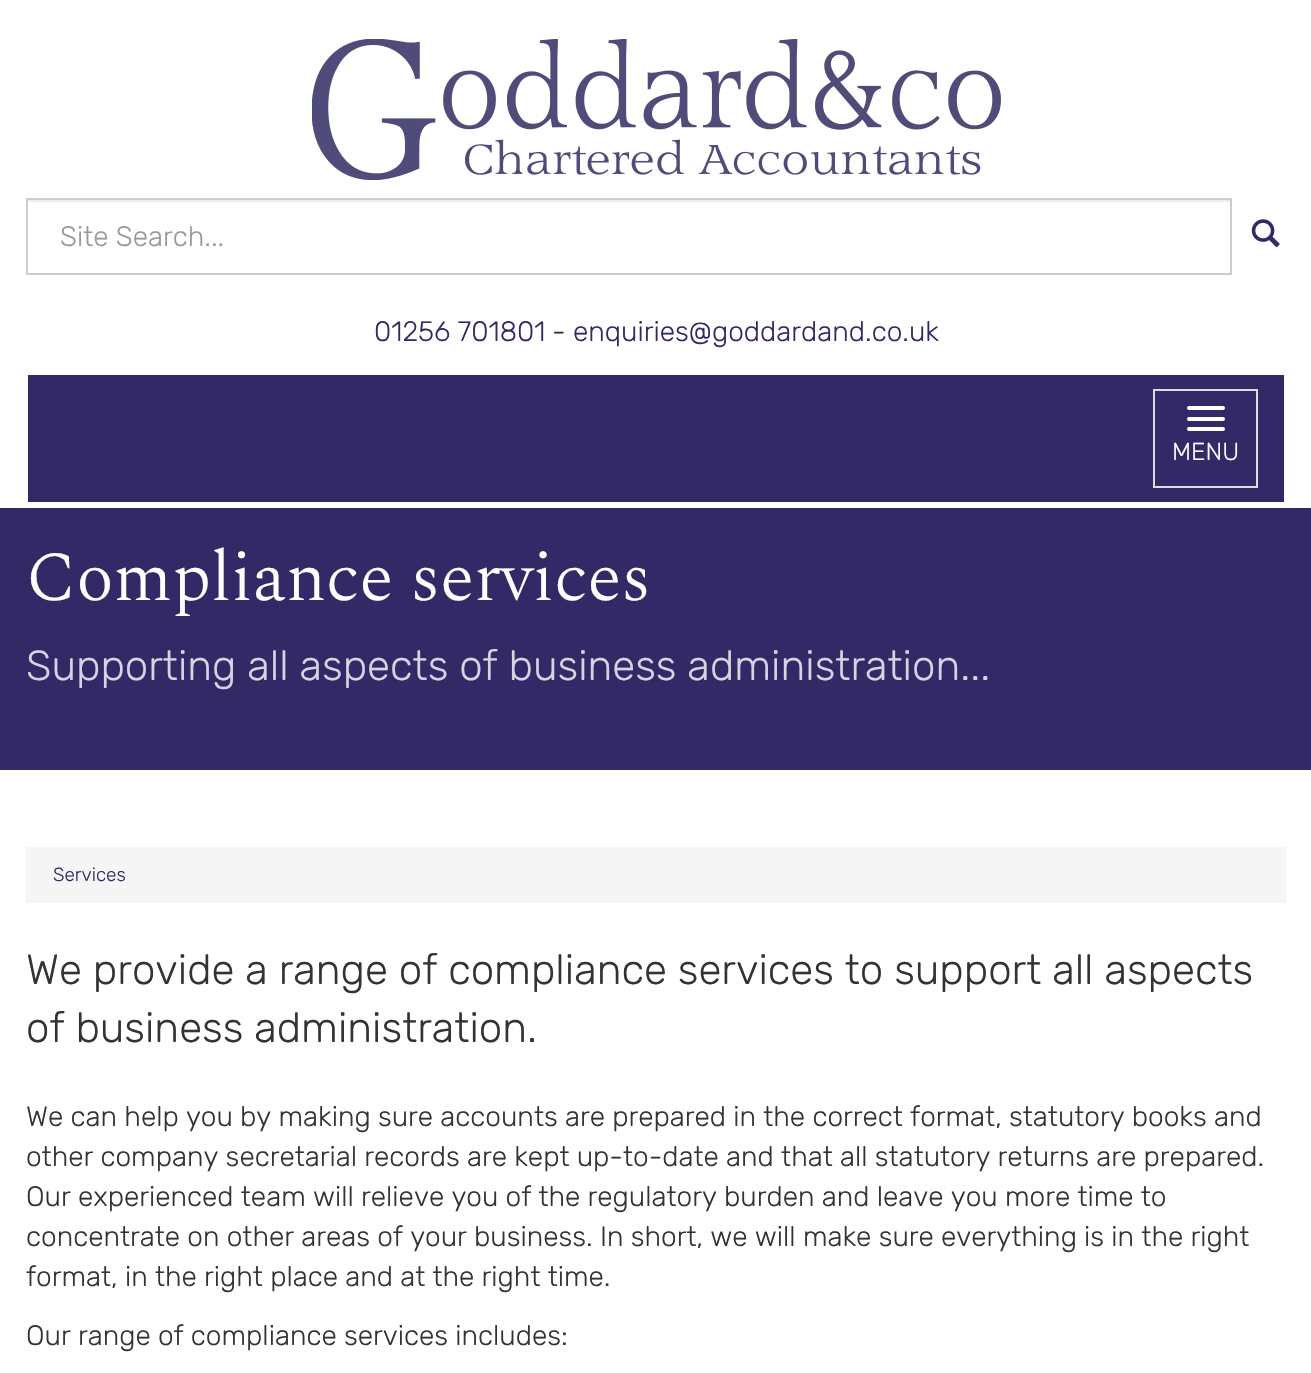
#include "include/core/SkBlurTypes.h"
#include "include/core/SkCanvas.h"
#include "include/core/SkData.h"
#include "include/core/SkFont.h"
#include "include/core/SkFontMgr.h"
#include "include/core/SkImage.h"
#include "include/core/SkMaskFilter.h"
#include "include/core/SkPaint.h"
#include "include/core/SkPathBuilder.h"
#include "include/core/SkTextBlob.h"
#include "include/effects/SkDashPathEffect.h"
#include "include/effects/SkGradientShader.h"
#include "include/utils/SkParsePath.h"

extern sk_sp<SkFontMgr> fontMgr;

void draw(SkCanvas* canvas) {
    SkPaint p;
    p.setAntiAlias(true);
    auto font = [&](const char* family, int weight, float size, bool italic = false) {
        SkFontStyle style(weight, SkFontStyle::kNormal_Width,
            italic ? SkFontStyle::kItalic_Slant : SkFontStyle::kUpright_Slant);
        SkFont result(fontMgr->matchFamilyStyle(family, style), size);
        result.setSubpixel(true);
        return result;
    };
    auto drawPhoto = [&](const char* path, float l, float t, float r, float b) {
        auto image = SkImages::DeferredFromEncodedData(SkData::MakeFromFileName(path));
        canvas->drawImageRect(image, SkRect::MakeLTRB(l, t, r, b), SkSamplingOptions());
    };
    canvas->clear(0xFFFFFFFF);
    drawPhoto("media/1.png", 312, 39, 1001, 180);
    p.setColor(0xFFECECEC);
    canvas->drawRect(SkRect::MakeLTRB(28, 200, 1230, 202), p);
    p.setStyle(SkPaint::kStroke_Style);
    p.setStrokeWidth(2);
    p.setColor(0xFFCCCCCC);
    canvas->drawRect(SkRect::MakeLTRB(27, 199, 1231, 274), p);
    auto font1 = font("Rubik", 300, 28);
    p.setStyle(SkPaint::kFill_Style);
    p.setColor(0xFF999999);
    canvas->drawString("Site Search...", 60, 246, font1, p);
    drawPhoto("media/2.png", 1251, 219, 1280, 248);
    p.setColor(0xFF342967);
    canvas->drawString("01256 701801", 374, 341, font1, p);
    p.setColor(0xFF333333);
    canvas->drawString("-", 552, 341, font1, p);
    p.setColor(0xFF342967);
    canvas->drawString("enquiries@goddardand.co.uk", 573, 341, font1, p);
    canvas->drawRect(SkRect::MakeLTRB(28, 375, 1284, 502), p);
    p.setStyle(SkPaint::kStroke_Style);
    p.setColor(0xFFDDDDDD);
    canvas->drawRect(SkRect::MakeLTRB(1154, 390, 1257, 487), p);
    p.setStyle(SkPaint::kFill_Style);
    p.setColor(0xFFFFFFFF);
    canvas->drawRoundRect(SkRect::MakeLTRB(1187, 406, 1225, 410), 2, 2, p);
    canvas->drawRoundRect(SkRect::MakeLTRB(1187, 417, 1225, 421), 2, 2, p);
    canvas->drawRoundRect(SkRect::MakeLTRB(1187, 427, 1225, 431), 2, 2, p);
    auto font2 = font("Rubik", 300, 24.5f);
    canvas->drawString("MENU", 1172, 460, font2, p);
    p.setColor(0xFF342967);
    canvas->drawRect(SkRect::MakeLTRB(0, 508, 1311, 770), p);
    auto font3 = font("Spectral", 300, 70);
    p.setColor(0xFFFFFFFF);
    canvas->drawString("Compliance services", 26, 600, font3, p);
    auto font4 = font("Rubik", 300, 42);
    p.setColor(0xFFD6D4E1);
    canvas->drawString("Supporting all aspects of business administration...", 26, 680, font4, p);
    p.setColor(0xFFF5F5F5);
    canvas->drawRect(SkRect::MakeLTRB(26, 847, 1286, 903), p);
    auto font5 = font("Rubik", 300, 19);
    p.setColor(0xFF342967);
    canvas->drawString("Services", 53, 881, font5, p);
    p.setColor(0xFF333333);
    canvas->drawString("We provide a range of compliance services to support all aspects", 26, 984, font4, p);
    canvas->drawString("of business administration.", 26, 1042, font4, p);
    {
        const struct { const char* s; float x, y; } items[] = {
            {"We can help you by making sure accounts are prepared in the correct format, statutory books and", 26, 1126},
            {"other company secretarial records are kept up-to-date and that all statutory returns are prepared.", 26, 1166},
            {"Our experienced team will relieve you of the regulatory burden and leave you more time to", 26, 1206},
            {"concentrate on other areas of your business. In short, we will make sure everything is in the right", 26, 1246},
            {"format, in the right place and at the right time.", 26, 1286},
            {"Our range of compliance services includes:", 26, 1345},
        };
        for (auto [s, x, y] : items) {
            canvas->drawString(s, x, y, font1, p);
        }
    }
}
